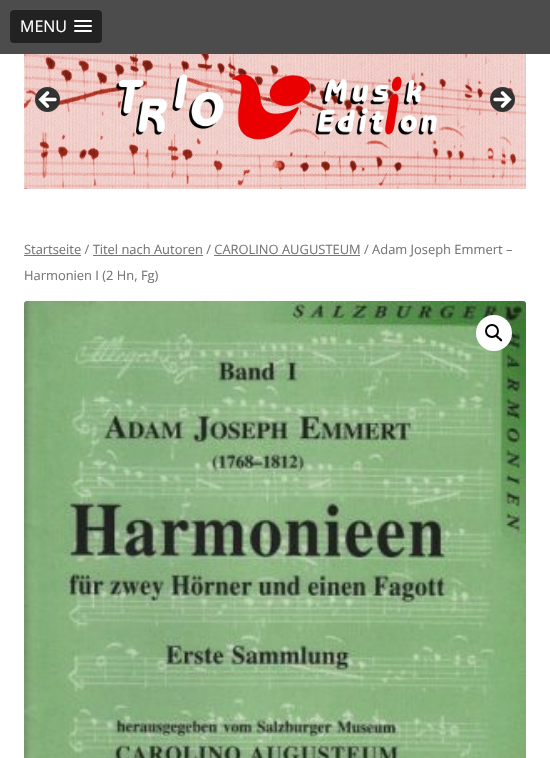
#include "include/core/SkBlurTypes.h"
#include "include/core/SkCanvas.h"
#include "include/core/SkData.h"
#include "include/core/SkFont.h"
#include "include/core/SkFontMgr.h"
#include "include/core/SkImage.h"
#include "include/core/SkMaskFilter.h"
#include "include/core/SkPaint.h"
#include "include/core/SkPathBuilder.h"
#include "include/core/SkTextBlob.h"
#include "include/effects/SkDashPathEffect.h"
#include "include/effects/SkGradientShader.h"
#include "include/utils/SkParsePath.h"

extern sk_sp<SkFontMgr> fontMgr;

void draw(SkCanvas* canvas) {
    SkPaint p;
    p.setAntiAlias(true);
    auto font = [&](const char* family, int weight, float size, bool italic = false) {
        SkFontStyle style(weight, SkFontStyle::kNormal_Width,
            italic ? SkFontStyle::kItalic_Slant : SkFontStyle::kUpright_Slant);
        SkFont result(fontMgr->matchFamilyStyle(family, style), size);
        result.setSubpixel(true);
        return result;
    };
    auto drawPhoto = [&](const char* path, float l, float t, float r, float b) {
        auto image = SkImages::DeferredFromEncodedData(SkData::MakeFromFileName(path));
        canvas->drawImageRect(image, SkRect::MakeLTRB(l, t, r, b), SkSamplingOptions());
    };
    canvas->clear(0xFFFFFFFF);
    p.setColor(0xFF4C4C4C);
    canvas->drawRect(SkRect::MakeLTRB(0, 0, 550, 54), p);
    p.setColor(0xFF222222);
    canvas->drawRoundRect(SkRect::MakeLTRB(10, 10, 102, 43), 4, 4, p);
    auto font1 = font("Open Sans", 400, 16);
    p.setColor(0xFFFFFFFF);
    canvas->drawString("MENU", 20, 32, font1, p);
    canvas->drawRoundRect(SkRect::MakeLTRB(74, 20, 92, 22), 1, 1, p);
    canvas->drawRoundRect(SkRect::MakeLTRB(74, 25, 92, 27), 1, 1, p);
    canvas->drawRoundRect(SkRect::MakeLTRB(74, 30, 92, 32), 1, 1, p);
    drawPhoto("media/1.png", 24, 54, 526, 189);
    drawPhoto("media/2.png", 35, 87, 60, 112);
    drawPhoto("media/3.png", 490, 87, 515, 112);
    p.setColor(0xFF767676);
    canvas->drawRect(SkRect::MakeLTRB(24, 255, 81, 256), p);
    auto font2 = font("Open Sans", 400, 12.9f);
    canvas->drawString("Startseite / Titel nach Autoren / CAROLINO AUGUSTEUM / Adam Joseph Emmert –", 24, 254, font2, p);
    canvas->drawRect(SkRect::MakeLTRB(93, 255, 203, 256), p);
    canvas->drawRect(SkRect::MakeLTRB(214, 255, 360, 256), p);
    canvas->drawString("Harmonien I (2 Hn, Fg)", 24, 280, font2, p);
    drawPhoto("media/4.png", 24, 301, 526, 758);
    p.setColor(0xFFFFFFFF);
    canvas->drawCircle(494, 333, 18, p);
    p.setStyle(SkPaint::kStroke_Style);
    p.setStrokeWidth(2);
    p.setColor(0xFF000000);
    canvas->drawCircle(492, 331, 6, p);
    p.setStyle(SkPaint::kFill_Style);
    canvas->drawPath(SkPathBuilder().moveTo(496, 335.5f).cubicTo(497.5f, 334.5f, 499, 337, 499.5f, 337.5f).cubicTo(500.5f, 338, 503, 340, 502, 341).cubicTo(500.5f, 342.5f, 499, 339.5f, 498.5f, 339).cubicTo(497.5f, 338.5f, 495, 336.5f, 496, 335.5f).close().detach(), p);
}
